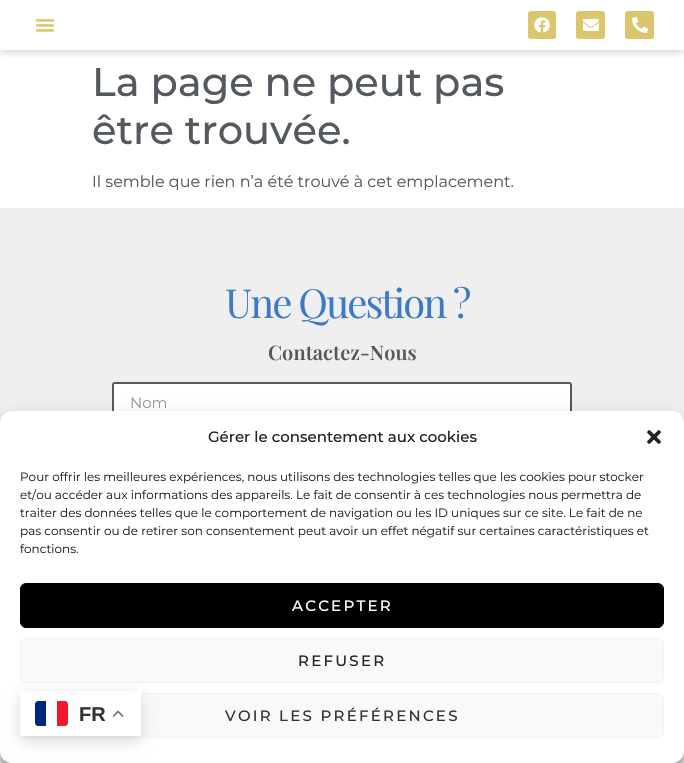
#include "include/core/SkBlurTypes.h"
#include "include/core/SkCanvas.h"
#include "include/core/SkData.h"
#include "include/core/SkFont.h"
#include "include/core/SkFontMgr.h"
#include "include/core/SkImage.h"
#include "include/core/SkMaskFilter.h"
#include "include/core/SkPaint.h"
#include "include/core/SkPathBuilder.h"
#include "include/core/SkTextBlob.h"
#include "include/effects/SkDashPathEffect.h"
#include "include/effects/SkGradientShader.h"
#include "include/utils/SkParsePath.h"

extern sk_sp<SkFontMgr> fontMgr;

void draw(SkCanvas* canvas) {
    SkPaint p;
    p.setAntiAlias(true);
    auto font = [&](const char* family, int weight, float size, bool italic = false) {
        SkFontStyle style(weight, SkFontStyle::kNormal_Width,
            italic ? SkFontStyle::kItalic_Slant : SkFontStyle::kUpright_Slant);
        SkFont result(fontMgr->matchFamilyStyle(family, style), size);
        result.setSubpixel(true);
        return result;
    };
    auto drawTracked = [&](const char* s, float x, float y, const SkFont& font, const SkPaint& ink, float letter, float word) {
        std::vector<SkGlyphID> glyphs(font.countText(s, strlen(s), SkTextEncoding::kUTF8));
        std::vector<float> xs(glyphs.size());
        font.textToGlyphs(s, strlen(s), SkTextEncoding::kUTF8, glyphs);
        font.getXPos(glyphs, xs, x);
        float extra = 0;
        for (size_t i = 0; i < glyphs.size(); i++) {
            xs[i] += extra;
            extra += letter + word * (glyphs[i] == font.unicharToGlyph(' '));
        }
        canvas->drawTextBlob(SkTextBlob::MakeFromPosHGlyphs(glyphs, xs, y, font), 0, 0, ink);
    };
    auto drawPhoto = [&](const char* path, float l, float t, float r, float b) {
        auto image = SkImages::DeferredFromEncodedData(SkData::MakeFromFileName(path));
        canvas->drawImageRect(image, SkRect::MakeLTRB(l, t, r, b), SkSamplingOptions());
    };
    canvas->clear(0xFFFFFFFF);
    canvas->save();
    canvas->clipRect(SkRect::MakeLTRB(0, 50, 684, 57));
    p.setColor(0x42000000);
    p.setMaskFilter(SkMaskFilter::MakeBlur(kNormal_SkBlurStyle, 5));
    canvas->drawRect(SkRect::MakeLTRB(0, 0, 684, 50), p);
    p.setMaskFilter(nullptr);
    canvas->restore();
    drawPhoto("media/1.png", 35, 19, 55, 32);
    p.setColor(0xFFDBC56D);
    canvas->drawRoundRect(SkRect::MakeLTRB(528, 11, 556, 39), 3, 3, p);
    drawPhoto("media/2.png", 534, 17, 550, 33);
    canvas->drawRoundRect(SkRect::MakeLTRB(576, 11, 605, 39), 3, 3, p);
    drawPhoto("media/3.png", 583, 19, 599, 31);
    canvas->drawRoundRect(SkRect::MakeLTRB(625, 11, 654, 39), 3, 3, p);
    drawPhoto("media/4.png", 632, 17, 648, 33);
    auto font1 = font("Montserrat", 500, 40);
    p.setColor(0xFF54595F);
    canvas->drawString("La page ne peut pas", 92, 96, font1, p);
    canvas->drawString("être trouvée.", 92, 144, font1, p);
    auto font2 = font("Montserrat", 400, 16);
    canvas->drawString("Il semble que rien n’a été trouvé à cet emplacement.", 92, 187, font2, p);
    p.setColor(0xFFEFEFEF);
    canvas->drawRect(SkRect::MakeLTRB(0, 208, 684, 763), p);
    auto font3 = font("Playfair Display", 400, 40);
    p.setColor(0xFF3C7AC9);
    drawTracked("Une Question ?", 225, 318, font3, p, -2, 0);
    auto font4 = font("Playfair Display", 600, 20);
    p.setColor(0xFF54595F);
    drawTracked("Contactez-Nous", 268, 360, font4, p, 0.1f, 0);
    p.setColor(0xFFFFFFFF);
    canvas->drawRoundRect(SkRect::MakeLTRB(113, 383, 571, 422), 2, 2, p);
    p.setStyle(SkPaint::kStroke_Style);
    p.setStrokeWidth(2);
    p.setColor(0xFF54595F);
    canvas->drawRoundRect(SkRect::MakeLTRB(113, 383, 571, 422), 2, 2, p);
    auto font5 = font("Montserrat", 400, 15);
    p.setStyle(SkPaint::kFill_Style);
    p.setColor(0xFF989B9F);
    canvas->drawString("Nom", 130, 408, font5, p);
    p.setColor(0x3B000000);
    p.setMaskFilter(SkMaskFilter::MakeBlur(kNormal_SkBlurStyle, 3));
    canvas->drawRoundRect(SkRect::MakeLTRB(0, 417, 684, 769), 12, 12, p);
    p.setMaskFilter(nullptr);
    p.setColor(0x30000000);
    p.setMaskFilter(SkMaskFilter::MakeBlur(kNormal_SkBlurStyle, 10));
    canvas->drawRoundRect(SkRect::MakeLTRB(0, 421, 684, 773), 12, 12, p);
    p.setMaskFilter(nullptr);
    p.setColor(0xFFFFFFFF);
    canvas->drawRoundRect(SkRect::MakeLTRB(0, 411, 684, 763), 12, 12, p);
    auto font6 = font("Montserrat", 500, 15);
    p.setColor(0xFF222222);
    canvas->drawString("Gérer le consentement aux cookies", 208, 442, font6, p);
    drawPhoto("media/5.png", 647, 430, 661, 444);
    auto font7 = font("Montserrat", 400, 12);
    {
        const struct { const char* s; float x, y; } items[] = {
            {"Pour offrir les meilleures expériences, nous utilisons des technologies telles que les cookies pour stocker", 20, 481},
            {"et/ou accéder aux informations des appareils. Le fait de consentir à ces technologies nous permettra de", 20, 499},
            {"traiter des données telles que le comportement de navigation ou les ID uniques sur ce site. Le fait de ne", 20, 517},
            {"pas consentir ou de retirer son consentement peut avoir un effet négatif sur certaines caractéristiques et", 20, 535},
            {"fonctions.", 20, 553},
        };
        for (auto [s, x, y] : items) {
            canvas->drawString(s, x, y, font7, p);
        }
    }
    p.setColor(0xFF000000);
    canvas->drawRoundRect(SkRect::MakeLTRB(20.5f, 583.5f, 663.5f, 627.5f), 5.5f, 5.5f, p);
    p.setStyle(SkPaint::kStroke_Style);
    p.setStrokeWidth(1);
    canvas->drawRoundRect(SkRect::MakeLTRB(20.5f, 583.5f, 663.5f, 627.5f), 5.5f, 5.5f, p);
    p.setStyle(SkPaint::kFill_Style);
    p.setColor(0xFFFFFFFF);
    drawTracked("ACCEPTER", 292, 611, font6, p, 2.25f, 0);
    p.setColor(0xFFF9F9F9);
    canvas->drawRoundRect(SkRect::MakeLTRB(20.5f, 638.5f, 663.5f, 682.5f), 5.5f, 5.5f, p);
    p.setStyle(SkPaint::kStroke_Style);
    p.setColor(0xFFF2F2F2);
    canvas->drawRoundRect(SkRect::MakeLTRB(20.5f, 638.5f, 663.5f, 682.5f), 5.5f, 5.5f, p);
    p.setStyle(SkPaint::kFill_Style);
    p.setColor(0xFF222222);
    drawTracked("REFUSER", 298, 666, font6, p, 2.25f, 0);
    p.setColor(0xFFF9F9F9);
    canvas->drawRoundRect(SkRect::MakeLTRB(20.5f, 693.5f, 663.5f, 737.5f), 5.5f, 5.5f, p);
    p.setStyle(SkPaint::kStroke_Style);
    p.setColor(0xFFF2F2F2);
    canvas->drawRoundRect(SkRect::MakeLTRB(20.5f, 693.5f, 663.5f, 737.5f), 5.5f, 5.5f, p);
    p.setStyle(SkPaint::kFill_Style);
    p.setColor(0xFF333333);
    drawTracked("VOIR LES PRÉFÉRENCES", 225, 721, font6, p, 2.25f, 0);
    p.setColor(0x26000000);
    p.setMaskFilter(SkMaskFilter::MakeBlur(kNormal_SkBlurStyle, 7.5f));
    canvas->drawRoundRect(SkRect::MakeLTRB(20, 696, 141, 741), 2, 2, p);
    p.setMaskFilter(nullptr);
    p.setColor(0xFFFFFFFF);
    canvas->drawRoundRect(SkRect::MakeLTRB(20, 691, 141, 736), 2, 2, p);
    p.setColor(0xFF00267F);
    canvas->drawPath(SkPathBuilder().moveTo(38, 701).lineTo(46, 701).lineTo(46, 726).lineTo(38, 726).cubicTo(36.5f, 726, 35, 724.5f, 35, 723).lineTo(35, 704).cubicTo(35, 702.5f, 36.5f, 701, 38, 701).close().detach(), p);
    p.setColor(0xFFF31830);
    canvas->drawPath(SkPathBuilder().moveTo(57, 701).lineTo(65, 701).cubicTo(66.5f, 701, 68, 702.5f, 68, 704).lineTo(68, 723).cubicTo(68, 724.5f, 66.5f, 726, 65, 726).lineTo(57, 726).close().detach(), p);
    auto font8 = font("Liberation Sans", 700, 20);
    p.setColor(0xFF333333);
    canvas->drawString("FR", 79, 721, font8, p);
    drawPhoto("media/6.png", 113, 710, 124, 717);
}
